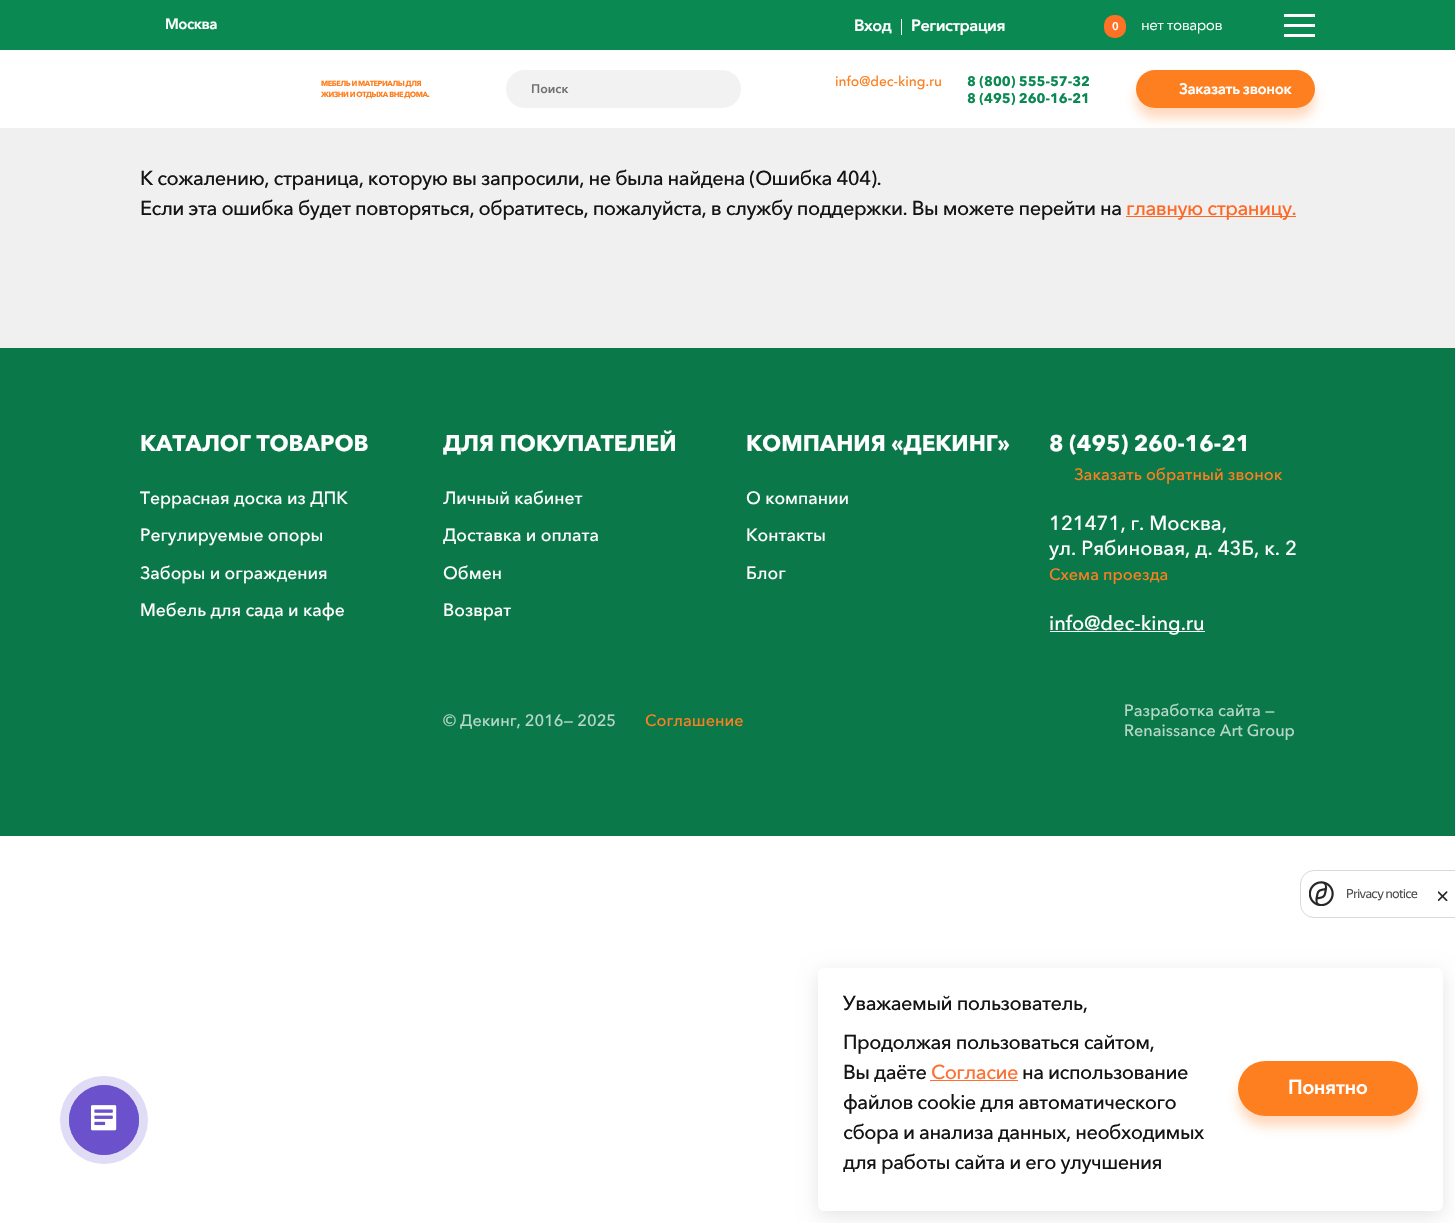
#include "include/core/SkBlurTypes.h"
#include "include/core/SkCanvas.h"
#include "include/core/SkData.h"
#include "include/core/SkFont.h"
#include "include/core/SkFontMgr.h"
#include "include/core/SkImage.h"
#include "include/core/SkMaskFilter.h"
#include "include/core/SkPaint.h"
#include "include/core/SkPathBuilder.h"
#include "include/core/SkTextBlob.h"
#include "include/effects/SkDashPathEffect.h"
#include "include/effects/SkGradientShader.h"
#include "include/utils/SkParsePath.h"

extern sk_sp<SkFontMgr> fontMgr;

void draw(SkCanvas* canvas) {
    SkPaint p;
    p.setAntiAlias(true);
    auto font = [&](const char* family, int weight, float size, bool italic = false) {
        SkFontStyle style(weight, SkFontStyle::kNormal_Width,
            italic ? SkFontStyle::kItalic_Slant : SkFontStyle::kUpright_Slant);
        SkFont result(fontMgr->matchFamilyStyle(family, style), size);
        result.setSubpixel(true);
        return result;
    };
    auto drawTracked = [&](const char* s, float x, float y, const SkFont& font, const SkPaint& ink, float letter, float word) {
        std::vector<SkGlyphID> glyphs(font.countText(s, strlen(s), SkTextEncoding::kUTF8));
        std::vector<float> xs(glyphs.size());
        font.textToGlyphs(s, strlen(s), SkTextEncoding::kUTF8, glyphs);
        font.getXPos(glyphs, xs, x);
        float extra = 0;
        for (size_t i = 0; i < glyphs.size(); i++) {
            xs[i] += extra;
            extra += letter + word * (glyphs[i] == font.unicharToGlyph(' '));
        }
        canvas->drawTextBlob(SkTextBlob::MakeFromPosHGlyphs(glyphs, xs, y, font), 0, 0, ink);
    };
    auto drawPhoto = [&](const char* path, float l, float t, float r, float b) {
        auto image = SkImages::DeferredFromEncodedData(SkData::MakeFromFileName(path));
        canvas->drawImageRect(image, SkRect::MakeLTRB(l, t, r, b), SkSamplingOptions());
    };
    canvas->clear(0xFFFFFFFF);
    p.setColor(0xFF0A8952);
    canvas->drawRect(SkRect::MakeLTRB(0, 0, 1455, 50), p);
    auto font1 = font("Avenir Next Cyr", 700, 15);
    p.setColor(0xFFFFFFFF);
    drawTracked("Москва", 165, 29, font1, p, -0.5f, 0);
    auto font2 = font("Avenir Next Cyr", 700, 16.25f);
    drawTracked("Вход", 854, 31, font2, p, -0.5f, 0);
    canvas->drawRect(SkRect::MakeLTRB(901, 19, 902, 35), p);
    drawTracked("Регистрация", 911, 31, font2, p, -0.5f, 0);
    p.setColor(0xFFFF7124);
    canvas->drawRoundRect(SkRect::MakeLTRB(1104, 15, 1126, 38), 10, 10, p);
    auto font3 = font("Avenir Next Cyr", 700, 11);
    p.setColor(0xFFFFFFFF);
    drawTracked("0", 1112, 30, font3, p, -0.5f, 0);
    auto font4 = font("Avenir Next Cyr", 400, 15);
    drawTracked("нет товаров", 1141, 30, font4, p, -0.5f, 0);
    {
        const struct { float l, t, r, b; SkColor color; } items[] = {
            {1284, 14, 1315, 17, 0xFFFFFFFF},
            {1284, 24, 1315, 27, 0xFFFFFFFF},
            {1284, 34, 1315, 37, 0xFFFFFFFF},
        };
        for (auto [l, t, r, b, color] : items) {
            p.setColor(color);
            canvas->drawRect(SkRect::MakeLTRB(l, t, r, b), p);
        }
    }
    auto font5 = font("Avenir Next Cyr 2", 700, 7.5f);
    p.setColor(0xFFFE7F20);
    drawTracked("МЕБЕЛЬ И МАТЕРИАЛЫ ДЛЯ", 321, 86, font5, p, -0.5f, 0);
    drawTracked("ЖИЗНИ И ОТДЫХА ВНЕ ДОМА.", 321, 97, font5, p, -0.5f, 0);
    p.setColor(0xFFF3F2F2);
    canvas->drawRoundRect(SkRect::MakeLTRB(506, 70, 741, 108), 19, 19, p);
    auto font6 = font("Avenir Next Cyr", 700, 12.5f);
    p.setColor(0xFF727272);
    canvas->drawString("Поиск", 531, 93, font6, p);
    auto font7 = font("Avenir Next Cyr", 500, 13.75f);
    p.setColor(0xFFFE7F20);
    canvas->drawString("info@dec-king.ru", 835, 86, font7, p);
    auto font8 = font("Avenir Next Cyr 2", 700, 13.75f);
    p.setColor(0xFF0A8952);
    canvas->drawString("8 (800) 555-57-32", 967, 86, font8, p);
    canvas->drawString("8 (495) 260-16-21", 967, 103, font8, p);
    p.setColor(0xFFF0F0F0);
    canvas->drawRect(SkRect::MakeLTRB(0, 128, 1455, 348), p);
    p.setColor(0x4DFE7F20);
    p.setMaskFilter(SkMaskFilter::MakeBlur(kNormal_SkBlurStyle, 6));
    canvas->drawRoundRect(SkRect::MakeLTRB(1136, 80, 1315, 118), 19, 19, p);
    p.setMaskFilter(nullptr);
    p.setColor(0xFFFE7F20);
    canvas->drawRoundRect(SkRect::MakeLTRB(1136, 70, 1315, 108), 19, 19, p);
    p.setColor(0xFFFFFFFF);
    drawTracked("Заказать звонок", 1179, 94, font1, p, -0.4f, 0);
    auto font9 = font("Avenir Next Cyr", 500, 20);
    p.setColor(0xFF141414);
    drawTracked("К сожалению, страница, которую вы запросили, не была найдена (Ошибка 404).", 140, 185, font9, p, -0.5f, 0);
    drawTracked("Если эта ошибка будет повторяться, обратитесь, пожалуйста, в службу поддержки. Вы можете перейти на", 140, 215, font9, p, -0.5f, 0);
    p.setColor(0xFFFF6724);
    canvas->drawRect(SkRect::MakeLTRB(1126, 216, 1296, 217), p);
    drawTracked("главную страницу.", 1126, 215, font9, p, -0.5f, 0);
    p.setColor(0xFF0A7848);
    canvas->drawRect(SkRect::MakeLTRB(0, 348, 1455, 836), p);
    auto font10 = font("Avenir Next Cyr 2", 700, 22.5f);
    p.setColor(0xFFFFFFFF);
    canvas->drawString("КАТАЛОГ ТОВАРОВ", 140, 451, font10, p);
    auto font11 = font("Avenir Next Cyr", 500, 17.5f);
    {
        const struct { const char* s; float x, y; } items[] = {
            {"Террасная доска из ДПК", 140, 504},
            {"Регулируемые опоры", 140, 541},
            {"Заборы и ограждения", 140, 579},
            {"Мебель для сада и кафе", 140, 616},
        };
        for (auto [s, x, y] : items) {
            canvas->drawString(s, x, y, font11, p);
        }
    }
    canvas->drawString("ДЛЯ ПОКУПАТЕЛЕЙ", 443, 451, font10, p);
    {
        const struct { const char* s; float x, y; } items[] = {
            {"Личный кабинет", 443, 504},
            {"Доставка и оплата", 443, 541},
            {"Обмен", 443, 579},
            {"Возврат", 443, 616},
        };
        for (auto [s, x, y] : items) {
            canvas->drawString(s, x, y, font11, p);
        }
    }
    canvas->drawString("КОМПАНИЯ «ДЕКИНГ»", 746, 451, font10, p);
    {
        const struct { const char* s; float x, y; } items[] = {
            {"О компании", 746, 504},
            {"Контакты", 746, 541},
            {"Блог", 746, 579},
        };
        for (auto [s, x, y] : items) {
            canvas->drawString(s, x, y, font11, p);
        }
    }
    canvas->drawString("8 (495) 260-16-21", 1049, 451, font10, p);
    auto font12 = font("Avenir Next Cyr", 500, 16.25f);
    p.setColor(0xFFFE7F20);
    canvas->drawString("Заказать обратный звонок", 1074, 480, font12, p);
    p.setColor(0xFFFFFFFF);
    canvas->drawString("121471, г. Москва,", 1049, 530, font9, p);
    canvas->drawString("ул. Рябиновая, д. 43Б, к. 2", 1049, 555, font9, p);
    p.setColor(0xFFFE7F20);
    canvas->drawString("Схема проезда", 1049, 580, font12, p);
    p.setColor(0xFFFFFFFF);
    canvas->drawRect(SkRect::MakeLTRB(1050, 631, 1205, 632), p);
    canvas->drawString("info@dec-king.ru", 1049, 630, font9, p);
    p.setColor(0xFFB6D7C8);
    canvas->drawString("© Декинг, 2016— 2025", 443, 726, font12, p);
    p.setColor(0xFFFE7F20);
    canvas->drawString("Соглашение", 645, 726, font12, p);
    p.setColor(0xFFB6D7C8);
    canvas->drawString("Разработка сайта —", 1124, 716, font12, p);
    canvas->drawString("Renaissance Art Group", 1124, 736, font12, p);
    p.setColor(0x1A000000);
    p.setMaskFilter(SkMaskFilter::MakeBlur(kNormal_SkBlurStyle, 9.5f));
    canvas->drawRoundRect(SkRect::MakeLTRB(818, 973, 1443, 1216), 6, 6, p);
    p.setMaskFilter(nullptr);
    p.setColor(0xFFFFFFFF);
    canvas->drawRoundRect(SkRect::MakeLTRB(818, 968, 1443, 1211), 6, 6, p);
    p.setColor(0xFF141414);
    {
        const struct { const char* s; float x, y; } items[] = {
            {"Уважаемый пользователь,", 843, 1010},
            {"Продолжая пользоваться сайтом,", 843, 1049},
            {"Вы даёте", 843, 1079},
        };
        for (auto [s, x, y] : items) {
            drawTracked(s, x, y, font9, p, -0.5f, 0);
        }
    }
    p.setColor(0xFFFD7133);
    drawTracked("Согласие", 931, 1079, font9, p, -0.5f, 0);
    canvas->drawRect(SkRect::MakeLTRB(930, 1080, 1018, 1081), p);
    p.setColor(0xFF141414);
    {
        const struct { const char* s; float x, y; } items[] = {
            {"на использование", 1022, 1079},
            {"файлов cookie для автоматического", 843, 1109},
            {"сбора и анализа данных, необходимых", 843, 1139},
            {"для работы сайта и его улучшения", 843, 1169},
        };
        for (auto [s, x, y] : items) {
            drawTracked(s, x, y, font9, p, -0.5f, 0);
        }
    }
    p.setColor(0x4DFE7F20);
    p.setMaskFilter(SkMaskFilter::MakeBlur(kNormal_SkBlurStyle, 6));
    canvas->drawRoundRect(SkRect::MakeLTRB(1238, 1071, 1418, 1126), 27.5f, 27.5f, p);
    p.setMaskFilter(nullptr);
    p.setColor(0xFFFE7F20);
    canvas->drawRoundRect(SkRect::MakeLTRB(1238, 1061, 1418, 1116), 27.5f, 27.5f, p);
    auto font13 = font("Avenir Next Cyr", 700, 20);
    p.setColor(0xFFFFFFFF);
    drawTracked("Понятно", 1288, 1094, font13, p, -0.5f, 0);
    p.setStyle(SkPaint::kStroke_Style);
    p.setStrokeWidth(1);
    p.setColor(0xFFD9D9D9);
    canvas->drawRoundRect(SkRect::MakeLTRB(1300.5f, 870.5f, 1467.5f, 917.5f), 13.5f, 13.5f, p);
    drawPhoto("media/1.png", 1309, 881, 1334, 906);
    auto font14 = font("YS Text", 400, 12.5f);
    p.setStyle(SkPaint::kFill_Style);
    p.setColor(0xFF4D4D4D);
    drawTracked("Privacy notice", 1346, 898, font14, p, -0.5f, 0);
    drawPhoto("media/2.png", 1438, 891, 1448, 901);
    p.setColor(0xFFE1DCF5);
    canvas->drawCircle(104, 1120, 44, p);
    p.setStyle(SkPaint::kStroke_Style);
    p.setColor(0xFF6B52CC);
    canvas->drawCircle(104, 1120, 34.5f, p);
    p.setStyle(SkPaint::kFill_Style);
    canvas->drawCircle(104, 1120, 35, p);
    drawPhoto("media/3.png", 91, 1105, 117, 1131);
}
